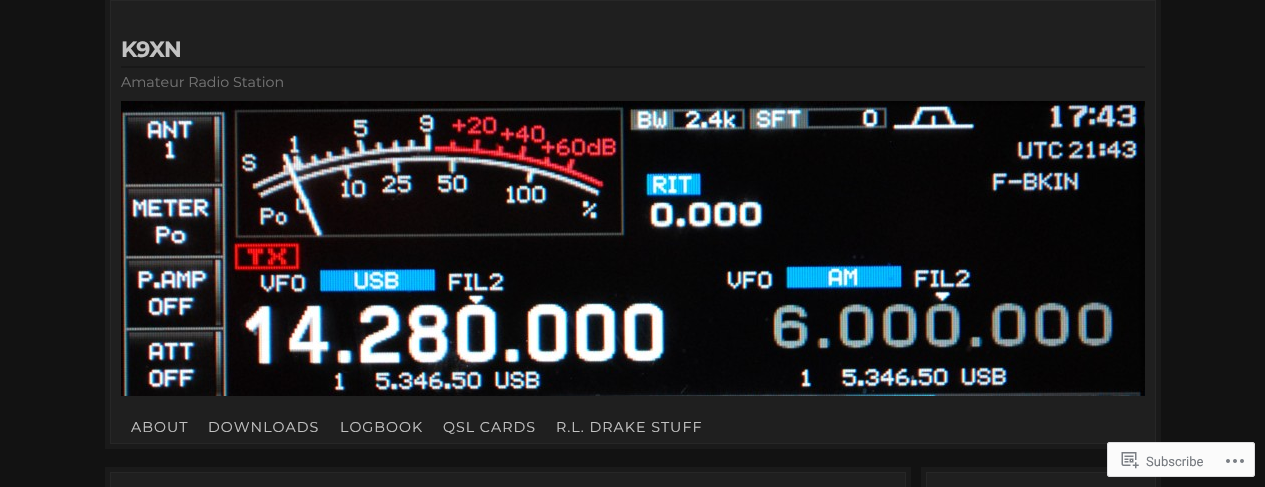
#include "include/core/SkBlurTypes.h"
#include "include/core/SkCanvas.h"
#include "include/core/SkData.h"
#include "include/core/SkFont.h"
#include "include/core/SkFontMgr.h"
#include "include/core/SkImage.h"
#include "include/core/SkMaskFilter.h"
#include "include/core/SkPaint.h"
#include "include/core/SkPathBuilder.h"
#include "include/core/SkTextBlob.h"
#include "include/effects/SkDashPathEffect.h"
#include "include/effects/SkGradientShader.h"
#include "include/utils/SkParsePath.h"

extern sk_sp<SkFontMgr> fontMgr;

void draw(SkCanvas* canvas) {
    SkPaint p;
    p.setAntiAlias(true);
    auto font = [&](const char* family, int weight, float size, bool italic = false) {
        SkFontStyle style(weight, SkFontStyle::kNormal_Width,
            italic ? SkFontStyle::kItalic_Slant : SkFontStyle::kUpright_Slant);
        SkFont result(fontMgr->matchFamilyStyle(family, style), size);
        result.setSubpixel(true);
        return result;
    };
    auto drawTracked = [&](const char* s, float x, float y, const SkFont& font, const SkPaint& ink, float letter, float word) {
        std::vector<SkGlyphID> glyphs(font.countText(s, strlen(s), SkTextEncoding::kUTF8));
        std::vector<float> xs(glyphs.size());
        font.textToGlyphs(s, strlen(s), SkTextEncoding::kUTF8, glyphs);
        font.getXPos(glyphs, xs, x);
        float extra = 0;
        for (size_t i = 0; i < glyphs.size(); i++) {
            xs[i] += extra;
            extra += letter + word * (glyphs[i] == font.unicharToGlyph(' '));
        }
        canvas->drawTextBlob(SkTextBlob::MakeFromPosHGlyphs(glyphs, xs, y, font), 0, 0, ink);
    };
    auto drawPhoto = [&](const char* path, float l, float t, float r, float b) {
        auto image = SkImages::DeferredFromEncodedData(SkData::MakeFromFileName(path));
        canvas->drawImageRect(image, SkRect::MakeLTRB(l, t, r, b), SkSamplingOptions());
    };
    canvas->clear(0xFF121212);
    p.setColor(0xFF1A1A1A);
    canvas->drawRect(SkRect::MakeLTRB(105, 0, 1161, 449), p);
    p.setColor(0xFF1F1F1F);
    canvas->drawRect(SkRect::MakeLTRB(110.5f, 0.5f, 1155.5f, 443.5f), p);
    p.setStyle(SkPaint::kStroke_Style);
    p.setStrokeWidth(1);
    p.setColor(0xFF272727);
    canvas->drawRect(SkRect::MakeLTRB(110.5f, 0.5f, 1155.5f, 443.5f), p);
    p.setStyle(SkPaint::kFill_Style);
    p.setColor(0xFF181818);
    canvas->drawRect(SkRect::MakeLTRB(121, 66, 1145, 68), p);
    auto font1 = font("Montserrat", 700, 22);
    p.setColor(0xFFC2C2C2);
    drawTracked("K9XN", 121, 57, font1, p, -1, 0);
    auto font2 = font("Montserrat", 400, 14.25f);
    p.setColor(0xFF727272);
    canvas->drawString("Amateur Radio Station", 121, 87, font2, p);
    drawPhoto("media/1.png", 121, 101, 1145, 396);
    p.setColor(0xFFC2C2C2);
    {
        const struct { const char* s; float x, y; } items[] = {
            {"ABOUT", 131, 432},
            {"DOWNLOADS", 208, 432},
            {"LOGBOOK", 340, 432},
            {"QSL CARDS", 443, 432},
            {"R.L. DRAKE STUFF", 556, 432},
        };
        for (auto [s, x, y] : items) {
            drawTracked(s, x, y, font2, p, 1, 0);
        }
    }
    p.setColor(0xFF1A1A1A);
    canvas->drawRect(SkRect::MakeLTRB(105, 467, 911, 487), p);
    p.setColor(0xFF1F1F1F);
    canvas->drawRect(SkRect::MakeLTRB(110.5f, 472.5f, 905.5f, 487.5f), p);
    p.setStyle(SkPaint::kStroke_Style);
    p.setColor(0xFF272727);
    canvas->drawRect(SkRect::MakeLTRB(110.5f, 472.5f, 905.5f, 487.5f), p);
    p.setStyle(SkPaint::kFill_Style);
    p.setColor(0xFF1A1A1A);
    canvas->drawRect(SkRect::MakeLTRB(921, 467, 1161, 487), p);
    p.setColor(0xFF1F1F1F);
    canvas->drawRect(SkRect::MakeLTRB(926.5f, 472.5f, 1155.5f, 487.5f), p);
    p.setStyle(SkPaint::kStroke_Style);
    p.setColor(0xFF272727);
    canvas->drawRect(SkRect::MakeLTRB(926.5f, 472.5f, 1155.5f, 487.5f), p);
    p.setStyle(SkPaint::kFill_Style);
    p.setColor(0xFAFFFFFF);
    canvas->drawRoundRect(SkRect::MakeLTRB(1107, 442, 1255, 477), 3, 3, p);
    p.setStyle(SkPaint::kStroke_Style);
    p.setColor(0xFADCDCDE);
    canvas->drawRoundRect(SkRect::MakeLTRB(1107.5f, 442.5f, 1254.5f, 476.5f), 2.5f, 2.5f, p);
    drawPhoto("media/2.png", 1121, 452, 1139, 469);
    auto font3 = font("Roboto", 400, 13);
    p.setStyle(SkPaint::kFill_Style);
    p.setColor(0xFF767A80);
    canvas->drawString("Subscribe", 1146, 466, font3, p);
    drawPhoto("media/3.png", 1226, 459, 1244, 463);
}
